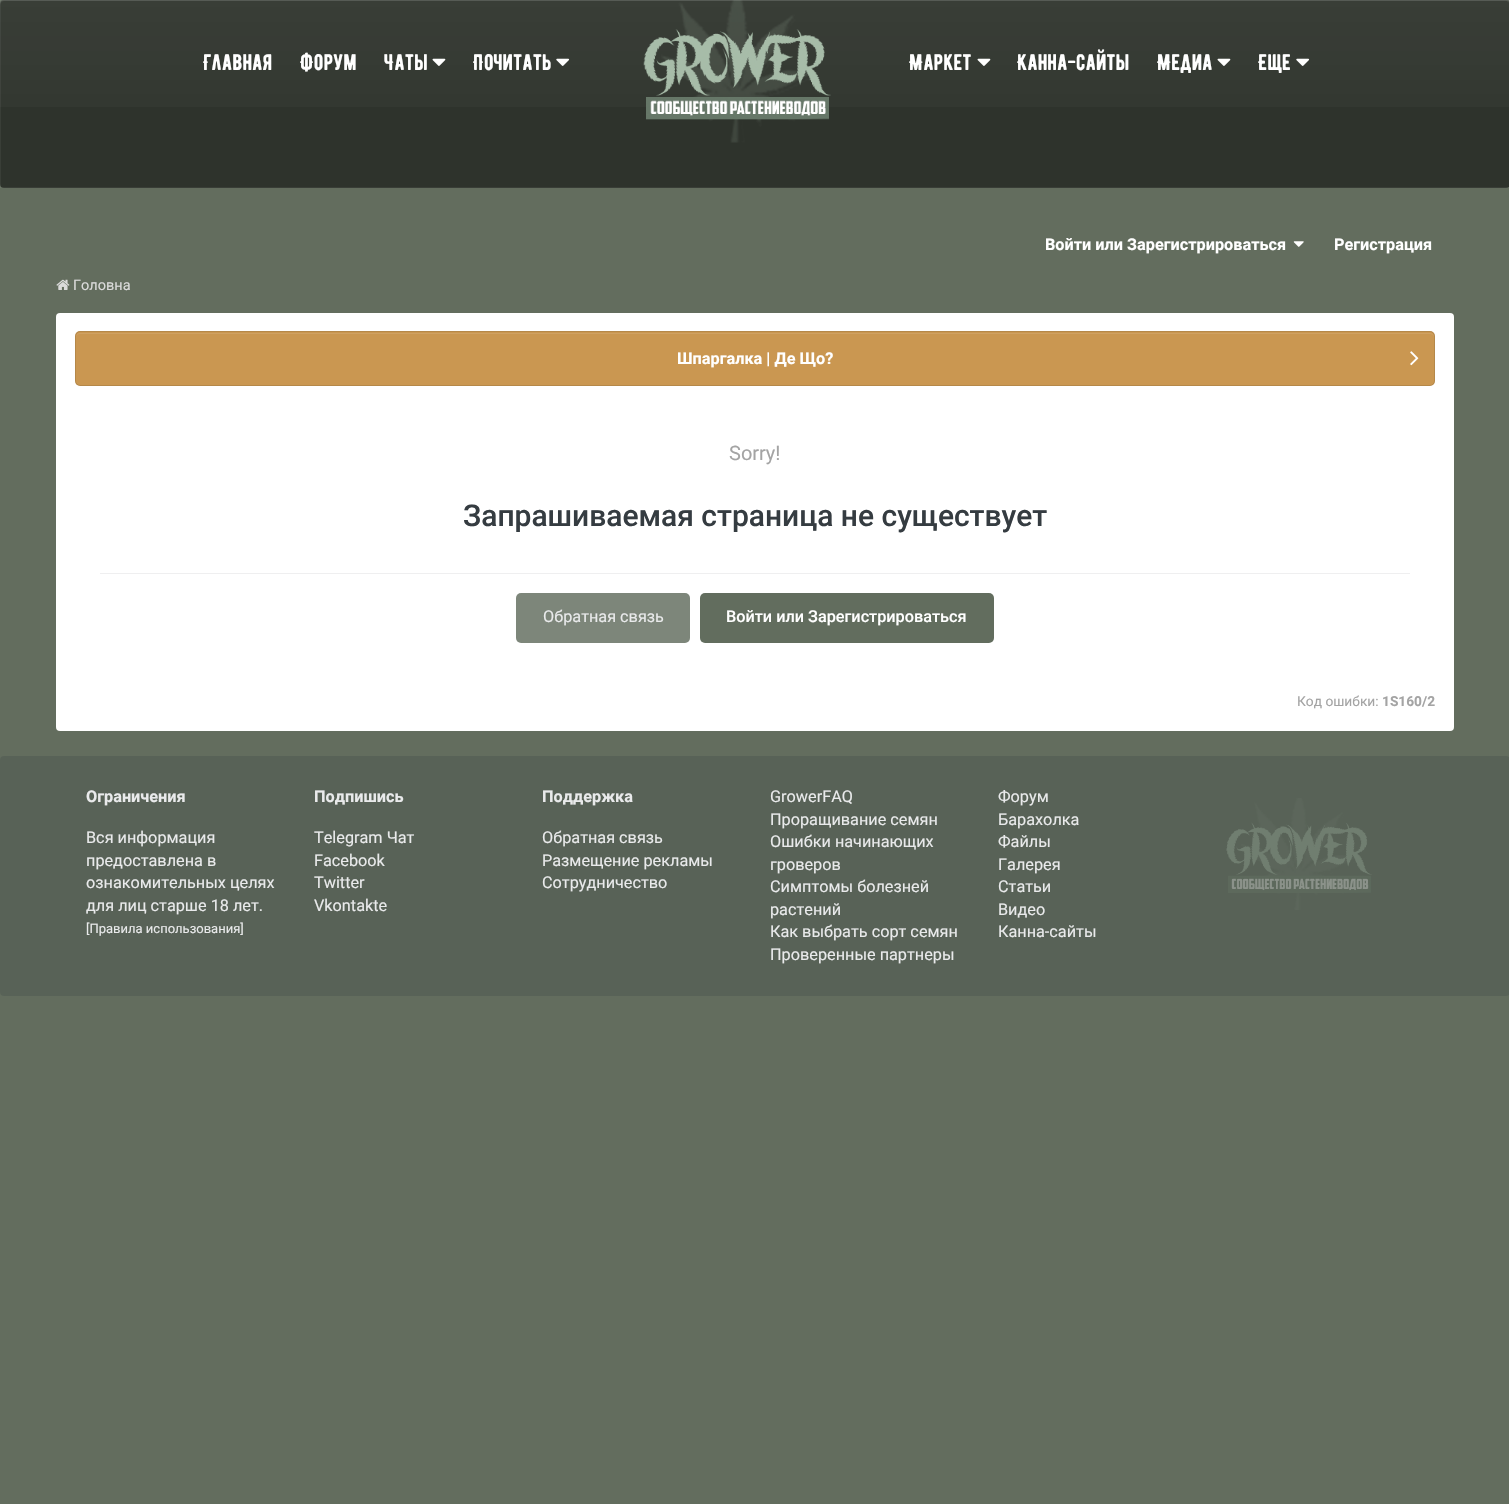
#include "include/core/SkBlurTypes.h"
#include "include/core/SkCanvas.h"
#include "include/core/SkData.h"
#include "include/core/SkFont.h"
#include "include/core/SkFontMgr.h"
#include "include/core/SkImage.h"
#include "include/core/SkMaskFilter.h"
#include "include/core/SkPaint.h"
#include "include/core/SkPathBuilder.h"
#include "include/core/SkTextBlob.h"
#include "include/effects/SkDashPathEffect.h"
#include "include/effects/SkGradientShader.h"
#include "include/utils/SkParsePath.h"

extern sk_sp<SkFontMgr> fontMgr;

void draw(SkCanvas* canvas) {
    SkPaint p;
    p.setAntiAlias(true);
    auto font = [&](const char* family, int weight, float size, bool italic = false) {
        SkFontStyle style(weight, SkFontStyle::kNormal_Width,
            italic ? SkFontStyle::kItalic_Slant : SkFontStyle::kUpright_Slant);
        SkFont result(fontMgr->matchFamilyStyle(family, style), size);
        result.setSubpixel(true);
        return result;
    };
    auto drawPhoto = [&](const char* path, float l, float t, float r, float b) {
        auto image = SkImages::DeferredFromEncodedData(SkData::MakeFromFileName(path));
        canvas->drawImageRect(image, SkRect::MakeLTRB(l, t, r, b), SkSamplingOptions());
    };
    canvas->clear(0xFF636D5E);
    p.setColor(0xFF2E332C);
    canvas->drawRoundRect(SkRect::MakeLTRB(0, 0, 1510, 188), 4, 4, p);
    {
        const SkColor colors[] = {0x0DFFFFFF, 0x00FFFFFF};
        const float stops[] = {0, 1};
        const SkPoint ends[] = {{755, 0}, {755, 188}};
        p.setShader(SkGradientShader::MakeLinear(ends, colors, stops, 2, SkTileMode::kClamp));
        p.setAlpha(255);
    }
    canvas->drawRect(SkRect::MakeLTRB(0, 0, 1509, 107), p);
    p.setStyle(SkPaint::kStroke_Style);
    p.setStrokeWidth(1);
    p.setShader(nullptr);
    p.setColor(0x0DFFFFFF);
    canvas->drawRect(SkRect::MakeLTRB(0.5f, 0.5f, 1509.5f, 187.5f), p);
    p.setStyle(SkPaint::kFill_Style);
    p.setColor(0x1AFFFFFF);
    canvas->drawPath(SkPathBuilder().moveTo(4, 1).lineTo(1506, 1).cubicTo(1508, 1, 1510, 3, 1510, 5).lineTo(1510, 4).cubicTo(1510, 2, 1508, 0, 1506, 0).lineTo(4, 0).cubicTo(2, 0, 0, 2, 0, 4).lineTo(0, 5).cubicTo(0, 3, 2, 1, 4, 1).close().detach(), p);
    auto font1 = font("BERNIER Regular", 400, 22.5f);
    p.setColor(0xFFFFFFFF);
    {
        const struct { const char* s; float x, y; } items[] = {
            {"Главная", 203, 70},
            {"Форум", 300, 70},
            {"Чаты", 384, 70},
        };
        for (auto [s, x, y] : items) {
            canvas->drawString(s, x, y, font1, p);
        }
    }
    drawPhoto("media/1.png", 432, 58, 446, 66);
    canvas->drawString("Почитать", 473, 70, font1, p);
    drawPhoto("media/2.png", 556, 58, 570, 66);
    drawPhoto("media/3.png", 643, 0, 831, 143);
    canvas->drawString("Маркет", 909, 70, font1, p);
    drawPhoto("media/1.png", 977, 58, 991, 66);
    canvas->drawString("Канна-сайты", 1017, 70, font1, p);
    canvas->drawString("Медиа", 1157, 70, font1, p);
    drawPhoto("media/1.png", 1217, 58, 1231, 66);
    canvas->drawString("Еще", 1258, 70, font1, p);
    drawPhoto("media/2.png", 1296, 58, 1310, 66);
    auto font2 = font("Roboto", 700, 16.25f);
    canvas->drawString("Войти или Зарегистрироваться", 1045, 250, font2, p);
    drawPhoto("media/4.png", 1293, 241, 1304, 247);
    canvas->drawString("Регистрация", 1334, 250, font2, p);
    drawPhoto("media/5.png", 56, 279, 70, 290);
    auto font3 = font("Roboto", 400, 14.5f);
    p.setColor(0xFFDBDBDB);
    canvas->drawString("Головна", 73, 290, font3, p);
    p.setColor(0xFFFFFFFF);
    canvas->drawRoundRect(SkRect::MakeLTRB(56, 313, 1454, 731), 4, 4, p);
    p.setColor(0xFFCA9751);
    canvas->drawRoundRect(SkRect::MakeLTRB(75, 331, 1435, 386), 5, 5, p);
    p.setColor(0xFFCFA162);
    canvas->drawPath(SkPathBuilder().moveTo(80, 334).lineTo(1430, 334).cubicTo(1432, 334, 1434, 335, 1434, 338).lineTo(1434, 337).cubicTo(1434, 335, 1432, 333, 1430, 333).lineTo(80, 333).cubicTo(78, 333, 76, 335, 76, 337).lineTo(76, 338).cubicTo(76, 335, 78, 334, 80, 334).close().detach(), p);
    p.setStyle(SkPaint::kStroke_Style);
    p.setColor(0x1A000000);
    canvas->drawRoundRect(SkRect::MakeLTRB(75.5f, 331.5f, 1434.5f, 385.5f), 4.5f, 4.5f, p);
    p.setStyle(SkPaint::kFill_Style);
    p.setColor(0xFFFFFFFF);
    canvas->drawString("Шпаргалка | Де Що?", 677, 364, font2, p);
    drawPhoto("media/6.png", 1410, 351, 1419, 366);
    auto font4 = font("Roboto", 400, 20);
    p.setColor(0xFFA4A4A4);
    canvas->drawString("Sorry!", 729, 460, font4, p);
    auto font5 = font("Roboto", 500, 30);
    p.setColor(0xFF353C41);
    canvas->drawString("Запрашиваемая страница не существует", 463, 526, font5, p);
    p.setColor(0xFFEFEFF0);
    canvas->drawRect(SkRect::MakeLTRB(100, 573, 1410, 574), p);
    p.setColor(0xFF7D867A);
    canvas->drawRoundRect(SkRect::MakeLTRB(516, 593, 690, 643), 5, 5, p);
    auto font6 = font("Roboto", 400, 16.25f);
    p.setColor(0xFFE9EAEB);
    canvas->drawString("Обратная связь", 543, 622, font6, p);
    p.setColor(0xFF626D5E);
    canvas->drawRoundRect(SkRect::MakeLTRB(700, 593, 994, 643), 5, 5, p);
    auto font7 = font("Roboto", 500, 16.25f);
    p.setColor(0xFFFFFFFF);
    canvas->drawString("Войти или Зарегистрироваться", 726, 622, font7, p);
    auto font8 = font("Roboto", 400, 13.75f);
    p.setColor(0xFFA4A4A4);
    canvas->drawString("Код ошибки:", 1297, 706, font8, p);
    auto font9 = font("Roboto", 700, 13.75f);
    canvas->drawString("1S160/2", 1382, 706, font9, p);
    p.setColor(0xFF586257);
    canvas->drawRoundRect(SkRect::MakeLTRB(0, 756, 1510, 996), 4, 4, p);
    p.setColor(0xFFE9EAEB);
    canvas->drawString("Ограничения", 86, 802, font2, p);
    {
        const struct { const char* s; float x, y; } items[] = {
            {"Вся информация", 86, 843},
            {"предоставлена в", 86, 866},
            {"ознакомительных целях", 86, 888},
            {"для лиц старше 18 лет.", 86, 911},
        };
        for (auto [s, x, y] : items) {
            canvas->drawString(s, x, y, font6, p);
        }
    }
    auto font10 = font("Roboto", 400, 13);
    canvas->drawString("[Правила использования]", 86, 933, font10, p);
    canvas->drawString("Подпишись", 314, 802, font2, p);
    {
        const struct { const char* s; float x, y; } items[] = {
            {"Telegram Чат", 314, 843},
            {"Facebook", 314, 866},
            {"Twitter", 314, 888},
            {"Vkontakte", 314, 911},
        };
        for (auto [s, x, y] : items) {
            canvas->drawString(s, x, y, font6, p);
        }
    }
    canvas->drawString("Поддержка", 542, 802, font2, p);
    {
        const struct { const char* s; float x, y; } items[] = {
            {"Обратная связь", 542, 843},
            {"Размещение рекламы", 542, 866},
            {"Сотрудничество", 542, 888},
            {"GrowerFAQ", 770, 802},
            {"Проращивание семян", 770, 825},
            {"Ошибки начинающих", 770, 847},
            {"гроверов", 770, 870},
            {"Симптомы болезней", 770, 892},
            {"растений", 770, 915},
            {"Как выбрать сорт семян", 770, 937},
            {"Проверенные партнеры", 770, 960},
            {"Форум", 998, 802},
            {"Барахолка", 998, 825},
            {"Файлы", 998, 847},
            {"Галерея", 998, 870},
            {"Статьи", 998, 892},
            {"Видео", 998, 915},
            {"Канна-сайты", 998, 937},
        };
        for (auto [s, x, y] : items) {
            canvas->drawString(s, x, y, font6, p);
        }
    }
    drawPhoto("media/7.png", 1226, 798, 1372, 910);
}
